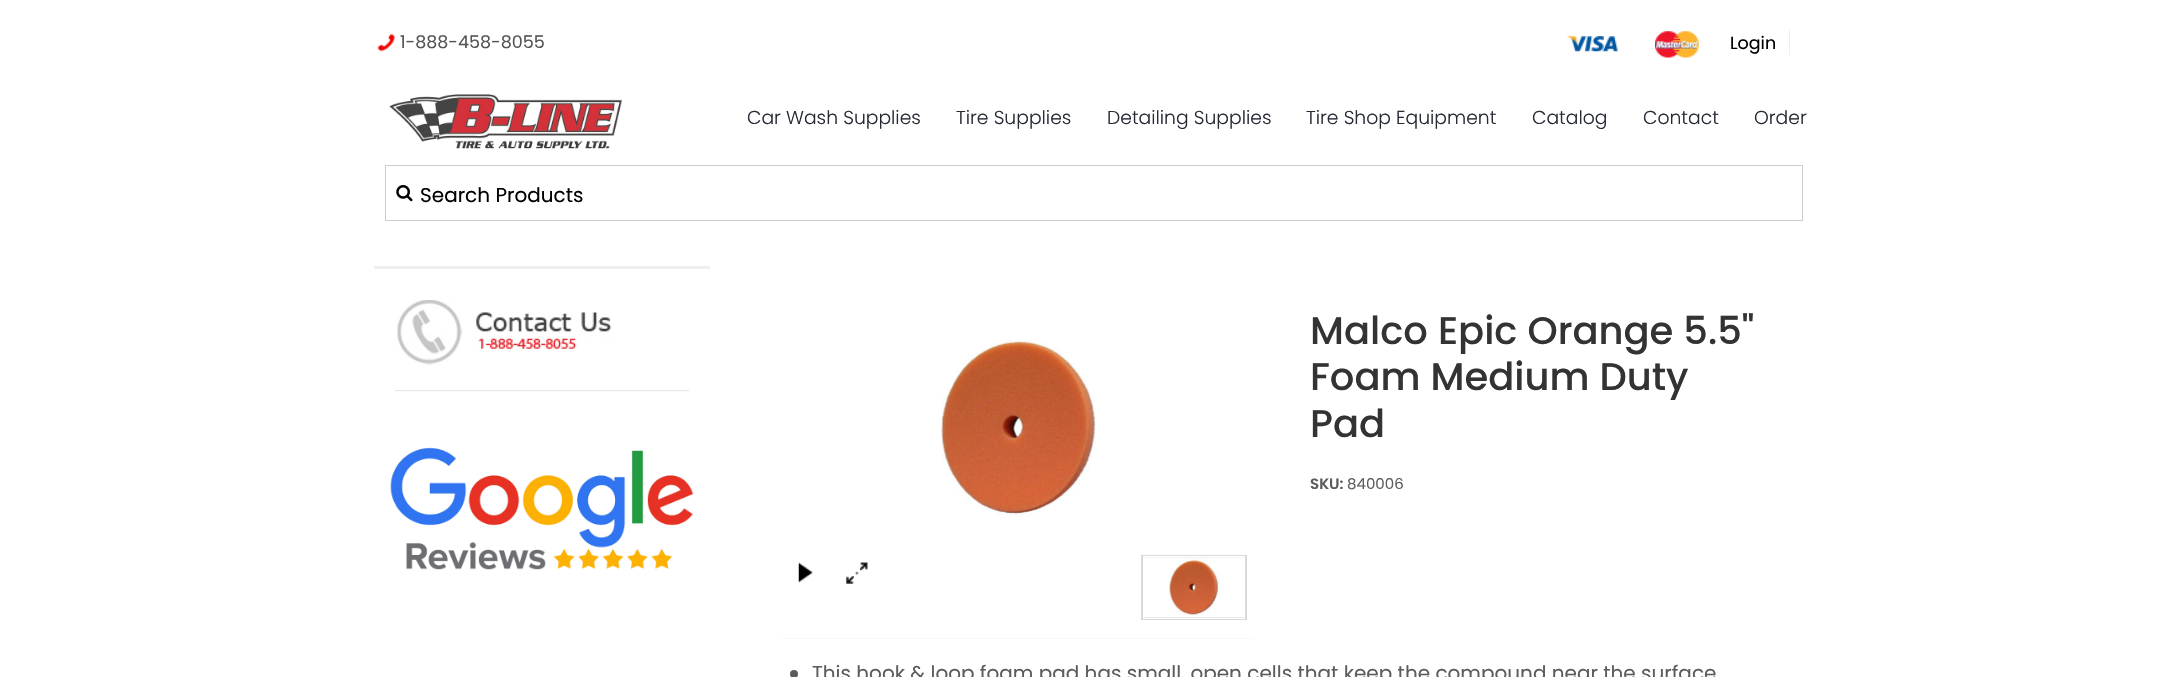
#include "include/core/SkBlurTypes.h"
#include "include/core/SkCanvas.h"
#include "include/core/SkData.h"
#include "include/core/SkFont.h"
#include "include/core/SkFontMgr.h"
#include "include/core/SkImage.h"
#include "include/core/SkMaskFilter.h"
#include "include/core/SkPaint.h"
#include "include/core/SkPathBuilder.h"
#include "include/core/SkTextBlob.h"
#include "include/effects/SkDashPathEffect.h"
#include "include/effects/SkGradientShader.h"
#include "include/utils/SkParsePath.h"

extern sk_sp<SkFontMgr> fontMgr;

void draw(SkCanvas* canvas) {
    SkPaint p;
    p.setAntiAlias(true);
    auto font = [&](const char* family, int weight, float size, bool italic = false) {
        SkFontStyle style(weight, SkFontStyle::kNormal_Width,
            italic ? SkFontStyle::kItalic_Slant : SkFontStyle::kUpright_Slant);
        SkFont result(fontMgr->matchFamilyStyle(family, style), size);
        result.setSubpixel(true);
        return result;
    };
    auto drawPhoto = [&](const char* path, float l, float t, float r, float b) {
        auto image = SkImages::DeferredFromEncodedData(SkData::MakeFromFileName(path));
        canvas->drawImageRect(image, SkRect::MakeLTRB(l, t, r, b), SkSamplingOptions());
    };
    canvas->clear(0xFFFFFFFF);
    drawPhoto("media/1.png", 377, 33, 395, 52);
    auto font1 = font("Poppins", 400, 17.5f);
    p.setColor(0xFF555555);
    canvas->drawString("1-888-458-8055", 400, 48, font1, p);
    drawPhoto("media/2.png", 1567, 36, 1618, 52);
    drawPhoto("media/3.png", 1655, 31, 1699, 58);
    p.setColor(0xFF000000);
    canvas->drawString("Login", 1730, 49, font1, p);
    p.setColor(0xFFEEEEEE);
    canvas->drawRect(SkRect::MakeLTRB(1789, 30, 1790, 55), p);
    drawPhoto("media/4.png", 389, 94, 623, 149);
    auto font2 = font("Poppins", 300, 18.75f);
    p.setColor(0xFF252A35);
    {
        const struct { const char* s; float x, y; } items[] = {
            {"Car Wash Supplies", 747, 124},
            {"Tire Supplies", 956, 124},
            {"Detailing Supplies", 1107, 124},
            {"Tire Shop Equipment", 1306, 124},
            {"Catalog", 1532, 124},
            {"Contact", 1643, 124},
            {"Order", 1754, 124},
        };
        for (auto [s, x, y] : items) {
            canvas->drawString(s, x, y, font2, p);
        }
    }
    p.setStyle(SkPaint::kStroke_Style);
    p.setStrokeWidth(1);
    p.setColor(0xFFCCCCCC);
    canvas->drawRect(SkRect::MakeLTRB(385.5f, 165.5f, 1802.5f, 220.5f), p);
    drawPhoto("media/5.png", 396, 185, 413, 202);
    auto font3 = font("Poppins", 400, 20);
    p.setStyle(SkPaint::kFill_Style);
    p.setColor(0xFF000000);
    canvas->drawString("Search Products", 420, 202, font3, p);
    p.setColor(0xFFEEEEEE);
    canvas->drawRect(SkRect::MakeLTRB(374, 266, 710, 269), p);
    drawPhoto("media/6.png", 395, 300, 689, 392);
    drawPhoto("media/7.png", 390, 447, 694, 570);
    p.setColor(0xFFFAF9F9);
    canvas->drawRect(SkRect::MakeLTRB(781, 638, 1254, 639), p);
    drawPhoto("media/8.png", 941, 339, 1096, 516);
    drawPhoto("media/9.png", 798, 562, 813, 583);
    drawPhoto("media/10.png", 846, 562, 868, 584);
    p.setColor(0xFFD9D9D9);
    canvas->drawRect(SkRect::MakeLTRB(1141, 555, 1247, 620), p);
    p.setStyle(SkPaint::kStroke_Style);
    p.setColor(0xFFFFFFFF);
    canvas->drawRect(SkRect::MakeLTRB(1143.5f, 556.5f, 1244.5f, 618.5f), p);
    drawPhoto("media/11.png", 1144, 557, 1244, 618);
    auto font4 = font("Poppins", 500, 38.5f);
    p.setStyle(SkPaint::kFill_Style);
    p.setColor(0xFF333333);
    {
        const struct { const char* s; float x, y; } items[] = {
            {"Malco Epic Orange 5.5\"", 1310, 344},
            {"Foam Medium Duty", 1310, 390},
            {"Pad", 1310, 437},
        };
        for (auto [s, x, y] : items) {
            canvas->drawString(s, x, y, font4, p);
        }
    }
    auto font5 = font("Poppins", 600, 15);
    p.setColor(0xFF5C5C5C);
    canvas->drawString("SKU:", 1310, 489, font5, p);
    auto font6 = font("Poppins", 400, 15);
    canvas->drawString("840006", 1347, 489, font6, p);
    canvas->drawCircle(794, 674, 4, p);
    canvas->drawString("This hook & loop foam pad has small, open cells that keep the compound near the surface", 812, 680, font3, p);
}
